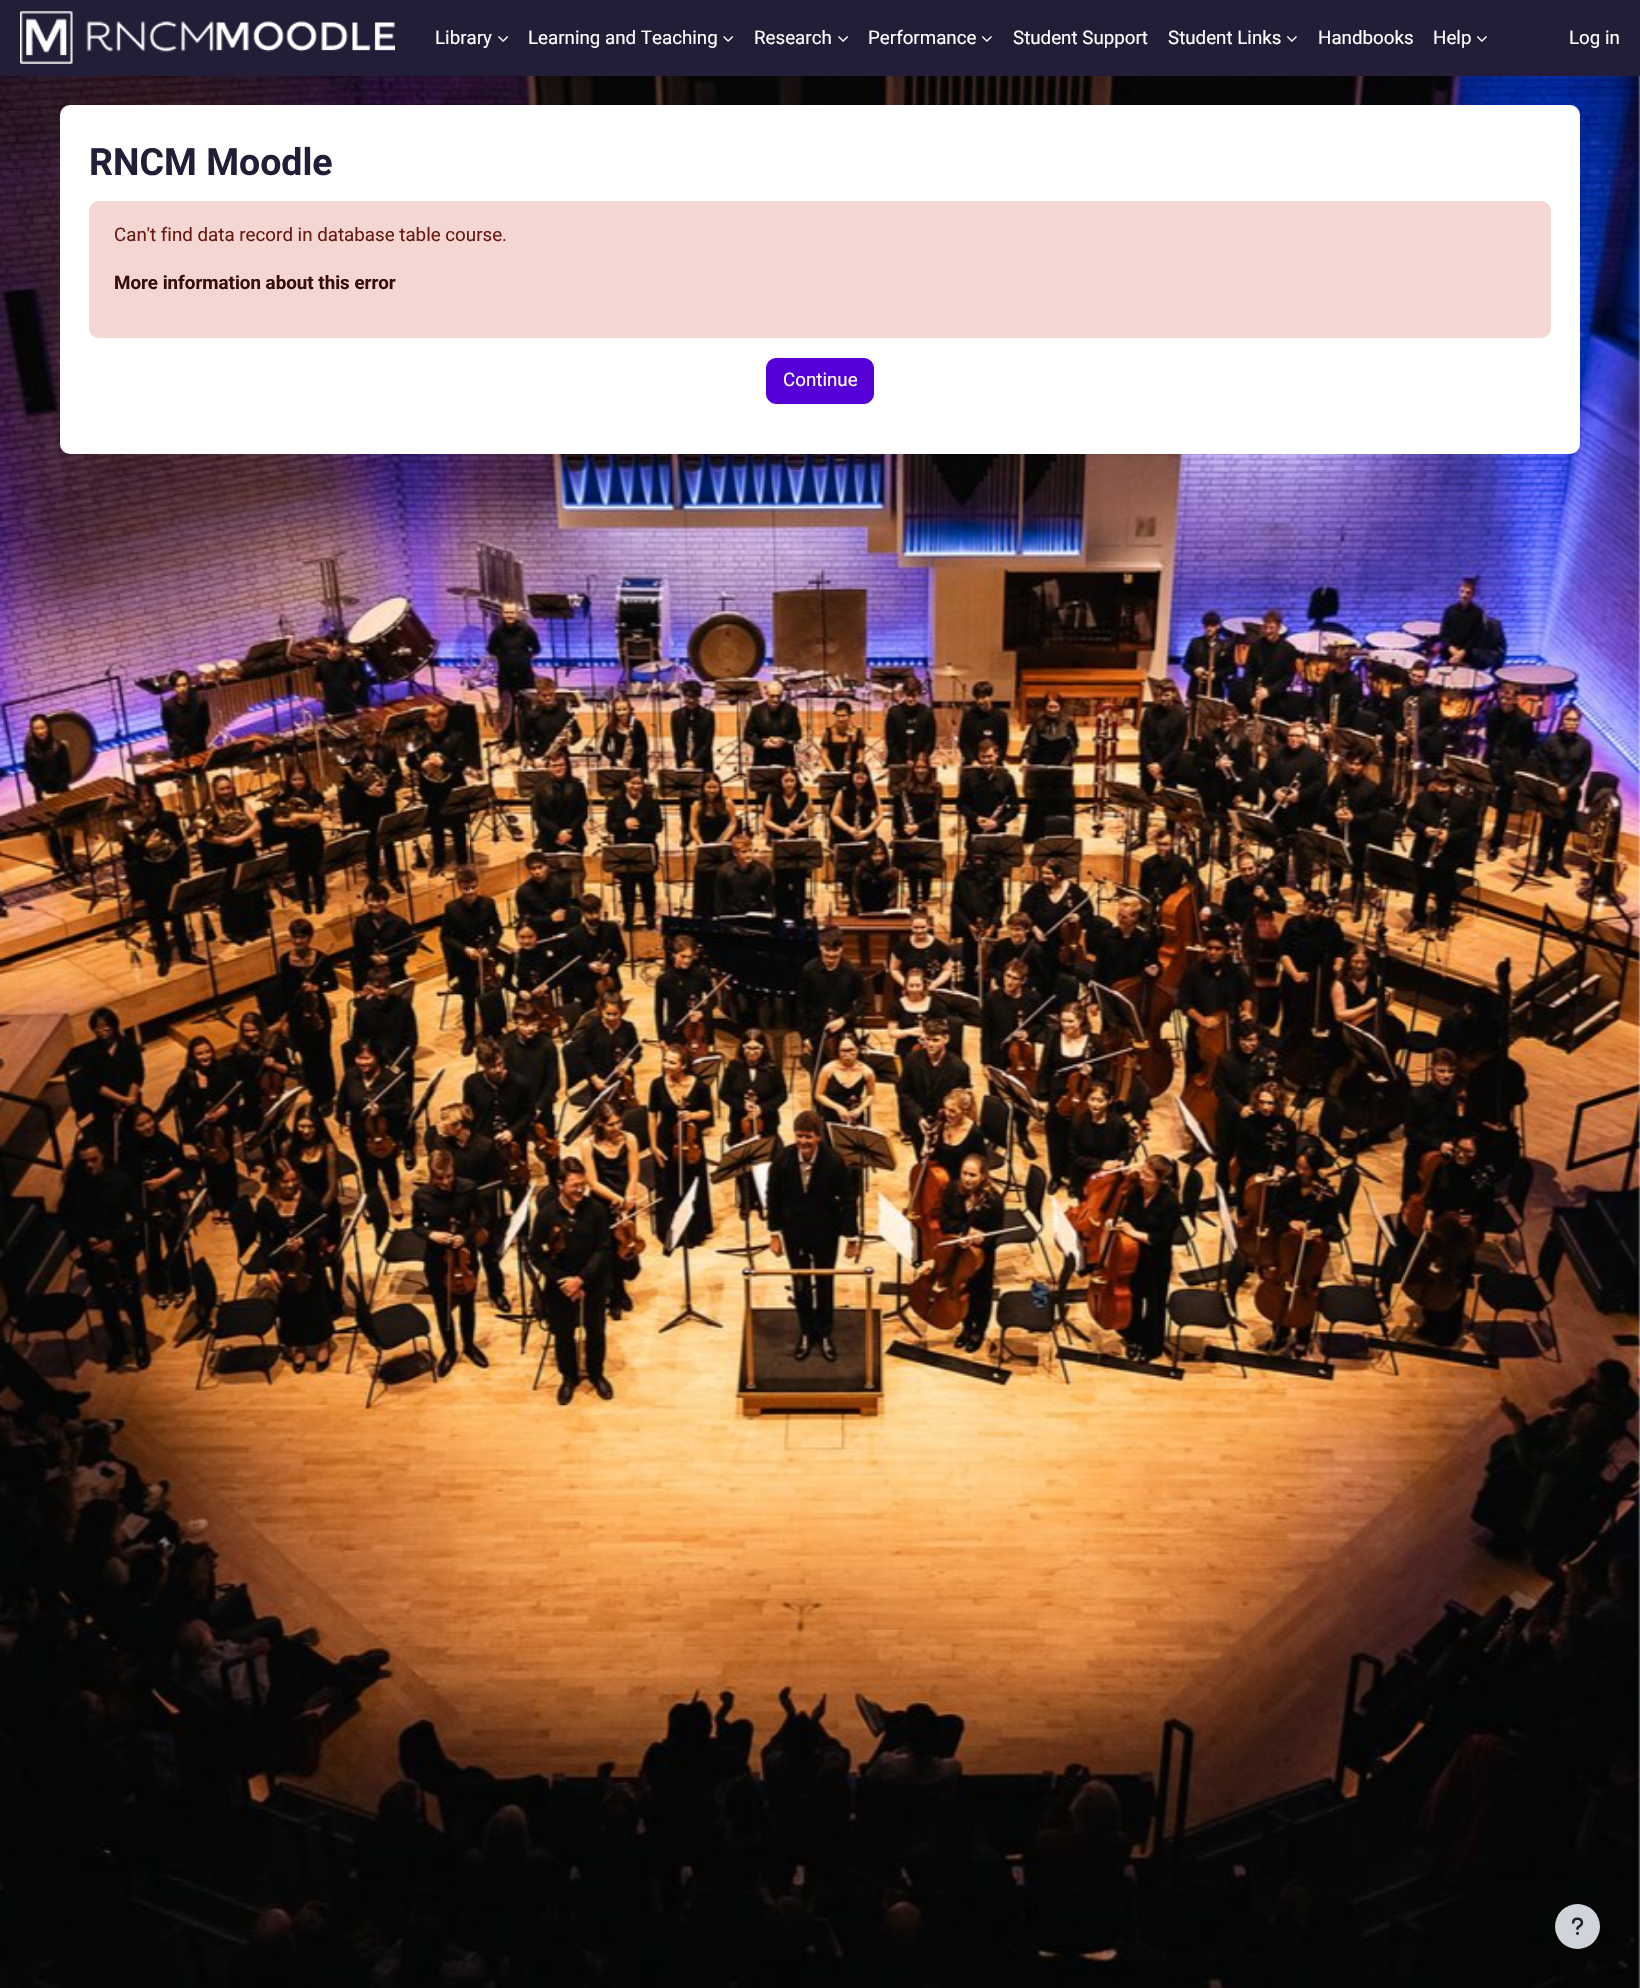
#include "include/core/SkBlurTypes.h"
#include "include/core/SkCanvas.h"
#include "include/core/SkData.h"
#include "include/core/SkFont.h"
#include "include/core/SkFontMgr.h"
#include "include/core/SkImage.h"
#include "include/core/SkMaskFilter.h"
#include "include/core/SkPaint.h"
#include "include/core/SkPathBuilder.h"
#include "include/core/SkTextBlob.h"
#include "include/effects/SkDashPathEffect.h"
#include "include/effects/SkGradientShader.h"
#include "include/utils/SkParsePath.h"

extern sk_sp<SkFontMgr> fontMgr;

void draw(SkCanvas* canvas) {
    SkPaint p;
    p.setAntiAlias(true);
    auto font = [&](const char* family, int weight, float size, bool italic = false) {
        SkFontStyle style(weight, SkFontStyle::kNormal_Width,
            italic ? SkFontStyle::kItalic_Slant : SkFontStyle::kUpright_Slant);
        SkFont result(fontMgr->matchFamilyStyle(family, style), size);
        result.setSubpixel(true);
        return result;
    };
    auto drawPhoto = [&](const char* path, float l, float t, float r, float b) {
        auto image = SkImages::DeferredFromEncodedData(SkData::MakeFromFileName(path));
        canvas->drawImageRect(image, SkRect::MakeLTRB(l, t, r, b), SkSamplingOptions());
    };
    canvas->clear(0xFFFFFFFF);
    drawPhoto("media/1.png", 0, 76, 1640, 1988);
    p.setColor(0xFF241D38);
    canvas->drawRect(SkRect::MakeLTRB(0, 0, 1640, 76), p);
    drawPhoto("media/2.png", 20, 11, 395, 64);
    auto font1 = font("Roboto", 400, 18.75f);
    p.setColor(0xFFFFFFFF);
    canvas->drawString("Library", 435, 44, font1, p);
    drawPhoto("media/3.png", 498, 36, 508, 42);
    canvas->drawString("Learning and Teaching", 528, 44, font1, p);
    drawPhoto("media/3.png", 723, 36, 733, 42);
    canvas->drawString("Research", 754, 44, font1, p);
    drawPhoto("media/3.png", 838, 36, 848, 42);
    canvas->drawString("Performance", 868, 44, font1, p);
    drawPhoto("media/4.png", 982, 36, 992, 42);
    canvas->drawString("Student Support", 1013, 44, font1, p);
    canvas->drawString("Student Links", 1168, 44, font1, p);
    drawPhoto("media/4.png", 1287, 36, 1297, 42);
    canvas->drawString("Handbooks", 1318, 44, font1, p);
    canvas->drawString("Help", 1433, 44, font1, p);
    drawPhoto("media/4.png", 1477, 36, 1487, 42);
    canvas->drawString("Log in", 1569, 44, font1, p);
    canvas->drawRoundRect(SkRect::MakeLTRB(60, 105, 1580, 454), 10, 10, p);
    auto font2 = font("Roboto", 700, 37.5f);
    p.setColor(0xFF241D38);
    canvas->drawString("RNCM Moodle", 89, 175, font2, p);
    p.setColor(0xFFF4D6D2);
    canvas->drawRoundRect(SkRect::MakeLTRB(89, 201, 1551, 338), 10, 10, p);
    p.setColor(0xFF691911);
    canvas->drawString("Can't find data record in database table course.", 114, 241, font1, p);
    auto font3 = font("Roboto", 700, 18.75f);
    p.setColor(0xFF390E09);
    canvas->drawString("More information about this error", 114, 289, font3, p);
    p.setColor(0xFF5600D7);
    canvas->drawRoundRect(SkRect::MakeLTRB(766.5f, 358.5f, 873.5f, 403.5f), 9.5f, 9.5f, p);
    p.setStyle(SkPaint::kStroke_Style);
    p.setStrokeWidth(1);
    canvas->drawRoundRect(SkRect::MakeLTRB(766.5f, 358.5f, 873.5f, 403.5f), 9.5f, 9.5f, p);
    p.setStyle(SkPaint::kFill_Style);
    p.setColor(0xFFFFFFFF);
    canvas->drawString("Continue", 783, 386, font1, p);
    p.setColor(0xFFCED4DA);
    canvas->drawCircle(1577.5f, 1926.5f, 22.5f, p);
    drawPhoto("media/5.png", 1571, 1917, 1584, 1935);
}
